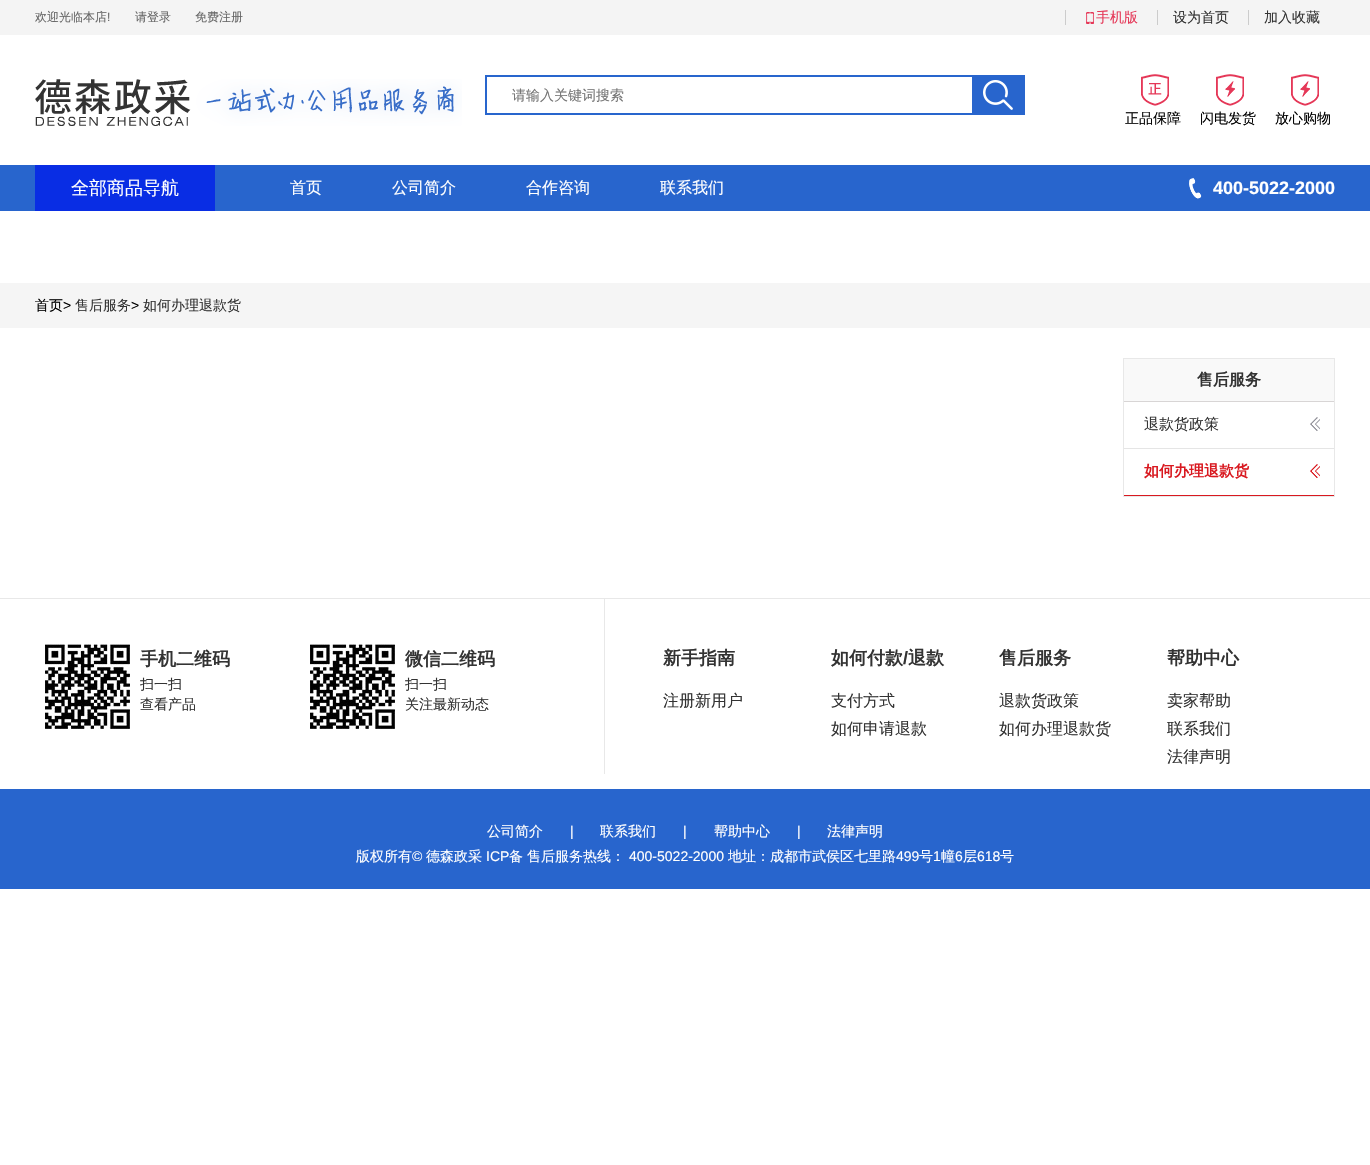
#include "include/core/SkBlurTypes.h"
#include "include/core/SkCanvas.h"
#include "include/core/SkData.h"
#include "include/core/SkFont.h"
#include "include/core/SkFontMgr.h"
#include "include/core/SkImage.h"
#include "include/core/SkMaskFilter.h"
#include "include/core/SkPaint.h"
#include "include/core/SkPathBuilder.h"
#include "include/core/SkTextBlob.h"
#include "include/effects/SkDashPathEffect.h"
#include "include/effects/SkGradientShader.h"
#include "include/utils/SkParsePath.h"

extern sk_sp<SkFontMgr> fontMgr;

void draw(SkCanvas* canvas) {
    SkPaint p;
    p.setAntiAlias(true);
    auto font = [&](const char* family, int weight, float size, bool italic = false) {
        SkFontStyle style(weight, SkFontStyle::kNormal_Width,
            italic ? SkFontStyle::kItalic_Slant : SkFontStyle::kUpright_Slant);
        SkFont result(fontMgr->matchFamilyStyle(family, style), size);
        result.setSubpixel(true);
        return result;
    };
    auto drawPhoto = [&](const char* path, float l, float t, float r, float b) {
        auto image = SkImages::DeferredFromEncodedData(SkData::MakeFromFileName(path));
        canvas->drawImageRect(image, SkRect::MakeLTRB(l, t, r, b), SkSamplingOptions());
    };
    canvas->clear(0xFFFFFFFF);
    p.setColor(0xFFF4F4F4);
    canvas->drawRect(SkRect::MakeLTRB(0, 0, 1370, 35), p);
    auto font1 = font("WenQuanYi Zen Hei", 500, 12);
    p.setColor(0xFF666666);
    canvas->drawString("欢迎光临本店", 35, 21, font1, p);
    auto font2 = font("Liberation Sans", 400, 12);
    canvas->drawString("!", 107, 21, font2, p);
    canvas->drawString("请登录", 135, 21, font1, p);
    canvas->drawString("免费注册", 195, 21, font1, p);
    drawPhoto("media/1.png", 1086, 12, 1094, 24);
    p.setColor(0xFFCCCCCC);
    canvas->drawRect(SkRect::MakeLTRB(1065, 10, 1066, 25), p);
    auto font3 = font("WenQuanYi Zen Hei", 500, 14);
    p.setColor(0xFFE53858);
    canvas->drawString("手机版", 1096, 22, font3, p);
    p.setColor(0xFFCCCCCC);
    canvas->drawRect(SkRect::MakeLTRB(1157, 10, 1158, 25), p);
    p.setColor(0xFF333333);
    canvas->drawString("设为首页", 1173, 22, font3, p);
    p.setColor(0xFFCCCCCC);
    canvas->drawRect(SkRect::MakeLTRB(1248, 10, 1249, 25), p);
    p.setColor(0xFF333333);
    canvas->drawString("加入收藏", 1264, 22, font3, p);
    drawPhoto("media/2.png", 35, 79, 462, 126);
    p.setColor(0xFF2865CD);
    canvas->drawRect(SkRect::MakeLTRB(485, 75, 1025, 115), p);
    p.setColor(0xFFFFFFFF);
    canvas->drawRect(SkRect::MakeLTRB(487, 77, 972, 113), p);
    p.setColor(0xFF757575);
    canvas->drawString("请输入关键词搜索", 512, 100, font3, p);
    drawPhoto("media/3.png", 983, 80, 1013, 110);
    drawPhoto("media/4.png", 1141, 74, 1169, 106);
    p.setColor(0xFF000000);
    canvas->drawString("正品保障", 1125, 123, font3, p);
    drawPhoto("media/5.png", 1216, 74, 1244, 106);
    canvas->drawString("闪电发货", 1200, 123, font3, p);
    drawPhoto("media/5.png", 1291, 74, 1319, 106);
    canvas->drawString("放心购物", 1275, 123, font3, p);
    p.setColor(0xFF2865CD);
    canvas->drawRect(SkRect::MakeLTRB(0, 165, 1370, 211), p);
    p.setColor(0xFF092DE4);
    canvas->drawRect(SkRect::MakeLTRB(35, 165, 215, 211), p);
    auto font4 = font("WenQuanYi Zen Hei", 500, 18);
    p.setColor(0xFFFFFFFF);
    canvas->drawString("全部商品导航", 71, 194, font4, p);
    auto font5 = font("WenQuanYi Zen Hei", 500, 16);
    {
        const struct { const char* s; float x, y; } items[] = {
            {"首页", 290, 193},
            {"公司简介", 392, 193},
            {"合作咨询", 526, 193},
            {"联系我们", 660, 193},
        };
        for (auto [s, x, y] : items) {
            canvas->drawString(s, x, y, font5, p);
        }
    }
    drawPhoto("media/6.png", 1189, 178, 1202, 199);
    auto font6 = font("Liberation Sans", 700, 18);
    canvas->drawString("400-5022-2000", 1213, 194, font6, p);
    p.setColor(0xFFF5F5F5);
    canvas->drawRect(SkRect::MakeLTRB(0, 283, 1370, 328), p);
    p.setColor(0xFF000000);
    canvas->drawString("首页", 35, 310, font3, p);
    auto font7 = font("Liberation Sans", 400, 14);
    canvas->drawString(">", 63, 310, font7, p);
    p.setColor(0xFF333333);
    canvas->drawString("售后服务", 75, 310, font3, p);
    p.setColor(0xFF000000);
    canvas->drawString(">", 131, 310, font7, p);
    p.setColor(0xFF333333);
    canvas->drawString("如何办理退款货", 143, 310, font3, p);
    p.setStyle(SkPaint::kStroke_Style);
    p.setStrokeWidth(1);
    p.setColor(0xFFE8E8E8);
    canvas->drawRect(SkRect::MakeLTRB(1123.5f, 358.5f, 1334.5f, 496.5f), p);
    p.setStyle(SkPaint::kFill_Style);
    p.setColor(0xFFF9F9F9);
    canvas->drawRect(SkRect::MakeLTRB(1124, 359, 1334, 401), p);
    p.setColor(0xFFD8D5D5);
    canvas->drawRect(SkRect::MakeLTRB(1124, 401, 1334, 402), p);
    auto font8 = font("WenQuanYi Zen Hei", 700, 16);
    p.setColor(0xFF333333);
    canvas->drawString("售后服务", 1197, 385, font8, p);
    drawPhoto("media/7.png", 1310, 417, 1320, 431);
    p.setColor(0xFFE5E5E5);
    canvas->drawRect(SkRect::MakeLTRB(1124, 448, 1334, 449), p);
    auto font9 = font("WenQuanYi Zen Hei", 500, 15);
    p.setColor(0xFF333333);
    canvas->drawString("退款货政策", 1144, 429, font9, p);
    drawPhoto("media/8.png", 1310, 464, 1320, 478);
    p.setColor(0xFFD91920);
    canvas->drawRect(SkRect::MakeLTRB(1124, 495, 1334, 496), p);
    auto font10 = font("WenQuanYi Zen Hei", 700, 15);
    canvas->drawString("如何办理退款货", 1144, 476, font10, p);
    p.setColor(0xFFE8E8E8);
    canvas->drawRect(SkRect::MakeLTRB(0, 598, 1370, 599), p);
    canvas->drawRect(SkRect::MakeLTRB(604, 599, 605, 774), p);
    drawPhoto("media/9.png", 45, 644, 130, 729);
    auto font11 = font("WenQuanYi Zen Hei", 700, 18);
    p.setColor(0xFF333333);
    canvas->drawString("手机二维码", 140, 665, font11, p);
    canvas->drawString("扫一扫", 140, 689, font3, p);
    canvas->drawString("查看产品", 140, 709, font3, p);
    drawPhoto("media/9.png", 310, 644, 395, 729);
    canvas->drawString("微信二维码", 405, 665, font11, p);
    canvas->drawString("扫一扫", 405, 689, font3, p);
    canvas->drawString("关注最新动态", 405, 709, font3, p);
    canvas->drawString("新手指南", 663, 664, font11, p);
    canvas->drawString("注册新用户", 663, 706, font5, p);
    canvas->drawString("如何付款", 831, 664, font11, p);
    canvas->drawString("/", 903, 664, font6, p);
    canvas->drawString("退款", 908, 664, font11, p);
    canvas->drawString("支付方式", 831, 706, font5, p);
    canvas->drawString("如何申请退款", 831, 734, font5, p);
    canvas->drawString("售后服务", 999, 664, font11, p);
    canvas->drawString("退款货政策", 999, 706, font5, p);
    canvas->drawString("如何办理退款货", 999, 734, font5, p);
    canvas->drawString("帮助中心", 1167, 664, font11, p);
    {
        const struct { const char* s; float x, y; } items[] = {
            {"卖家帮助", 1167, 706},
            {"联系我们", 1167, 734},
            {"法律声明", 1167, 762},
        };
        for (auto [s, x, y] : items) {
            canvas->drawString(s, x, y, font5, p);
        }
    }
    p.setColor(0xFF2865CD);
    canvas->drawRect(SkRect::MakeLTRB(0, 789, 1370, 889), p);
    p.setColor(0xFFFFFFFF);
    canvas->drawString("公司简介", 487, 836, font3, p);
    canvas->drawString("|", 570, 836, font7, p);
    canvas->drawString("联系我们", 600, 836, font3, p);
    canvas->drawString("|", 683, 836, font7, p);
    canvas->drawString("帮助中心", 714, 836, font3, p);
    canvas->drawString("|", 797, 836, font7, p);
    canvas->drawString("法律声明", 827, 836, font3, p);
    canvas->drawString("版权所有", 356, 861, font3, p);
    canvas->drawString("©", 412, 861, font7, p);
    canvas->drawString("德森政采", 426, 861, font3, p);
    canvas->drawString("ICP", 486, 861, font7, p);
    canvas->drawString("备", 509, 861, font3, p);
    canvas->drawString("售后服务热线：", 527, 861, font3, p);
    canvas->drawString("400-5022-2000", 629, 861, font7, p);
    canvas->drawString("地址：成都市武侯区七里路", 728, 861, font3, p);
    canvas->drawString("499", 896, 861, font7, p);
    canvas->drawString("号", 919, 861, font3, p);
    canvas->drawString("1", 933, 861, font7, p);
    canvas->drawString("幢", 941, 861, font3, p);
    canvas->drawString("6", 955, 861, font7, p);
    canvas->drawString("层", 963, 861, font3, p);
    canvas->drawString("618", 977, 861, font7, p);
    canvas->drawString("号", 1000, 861, font3, p);
}
